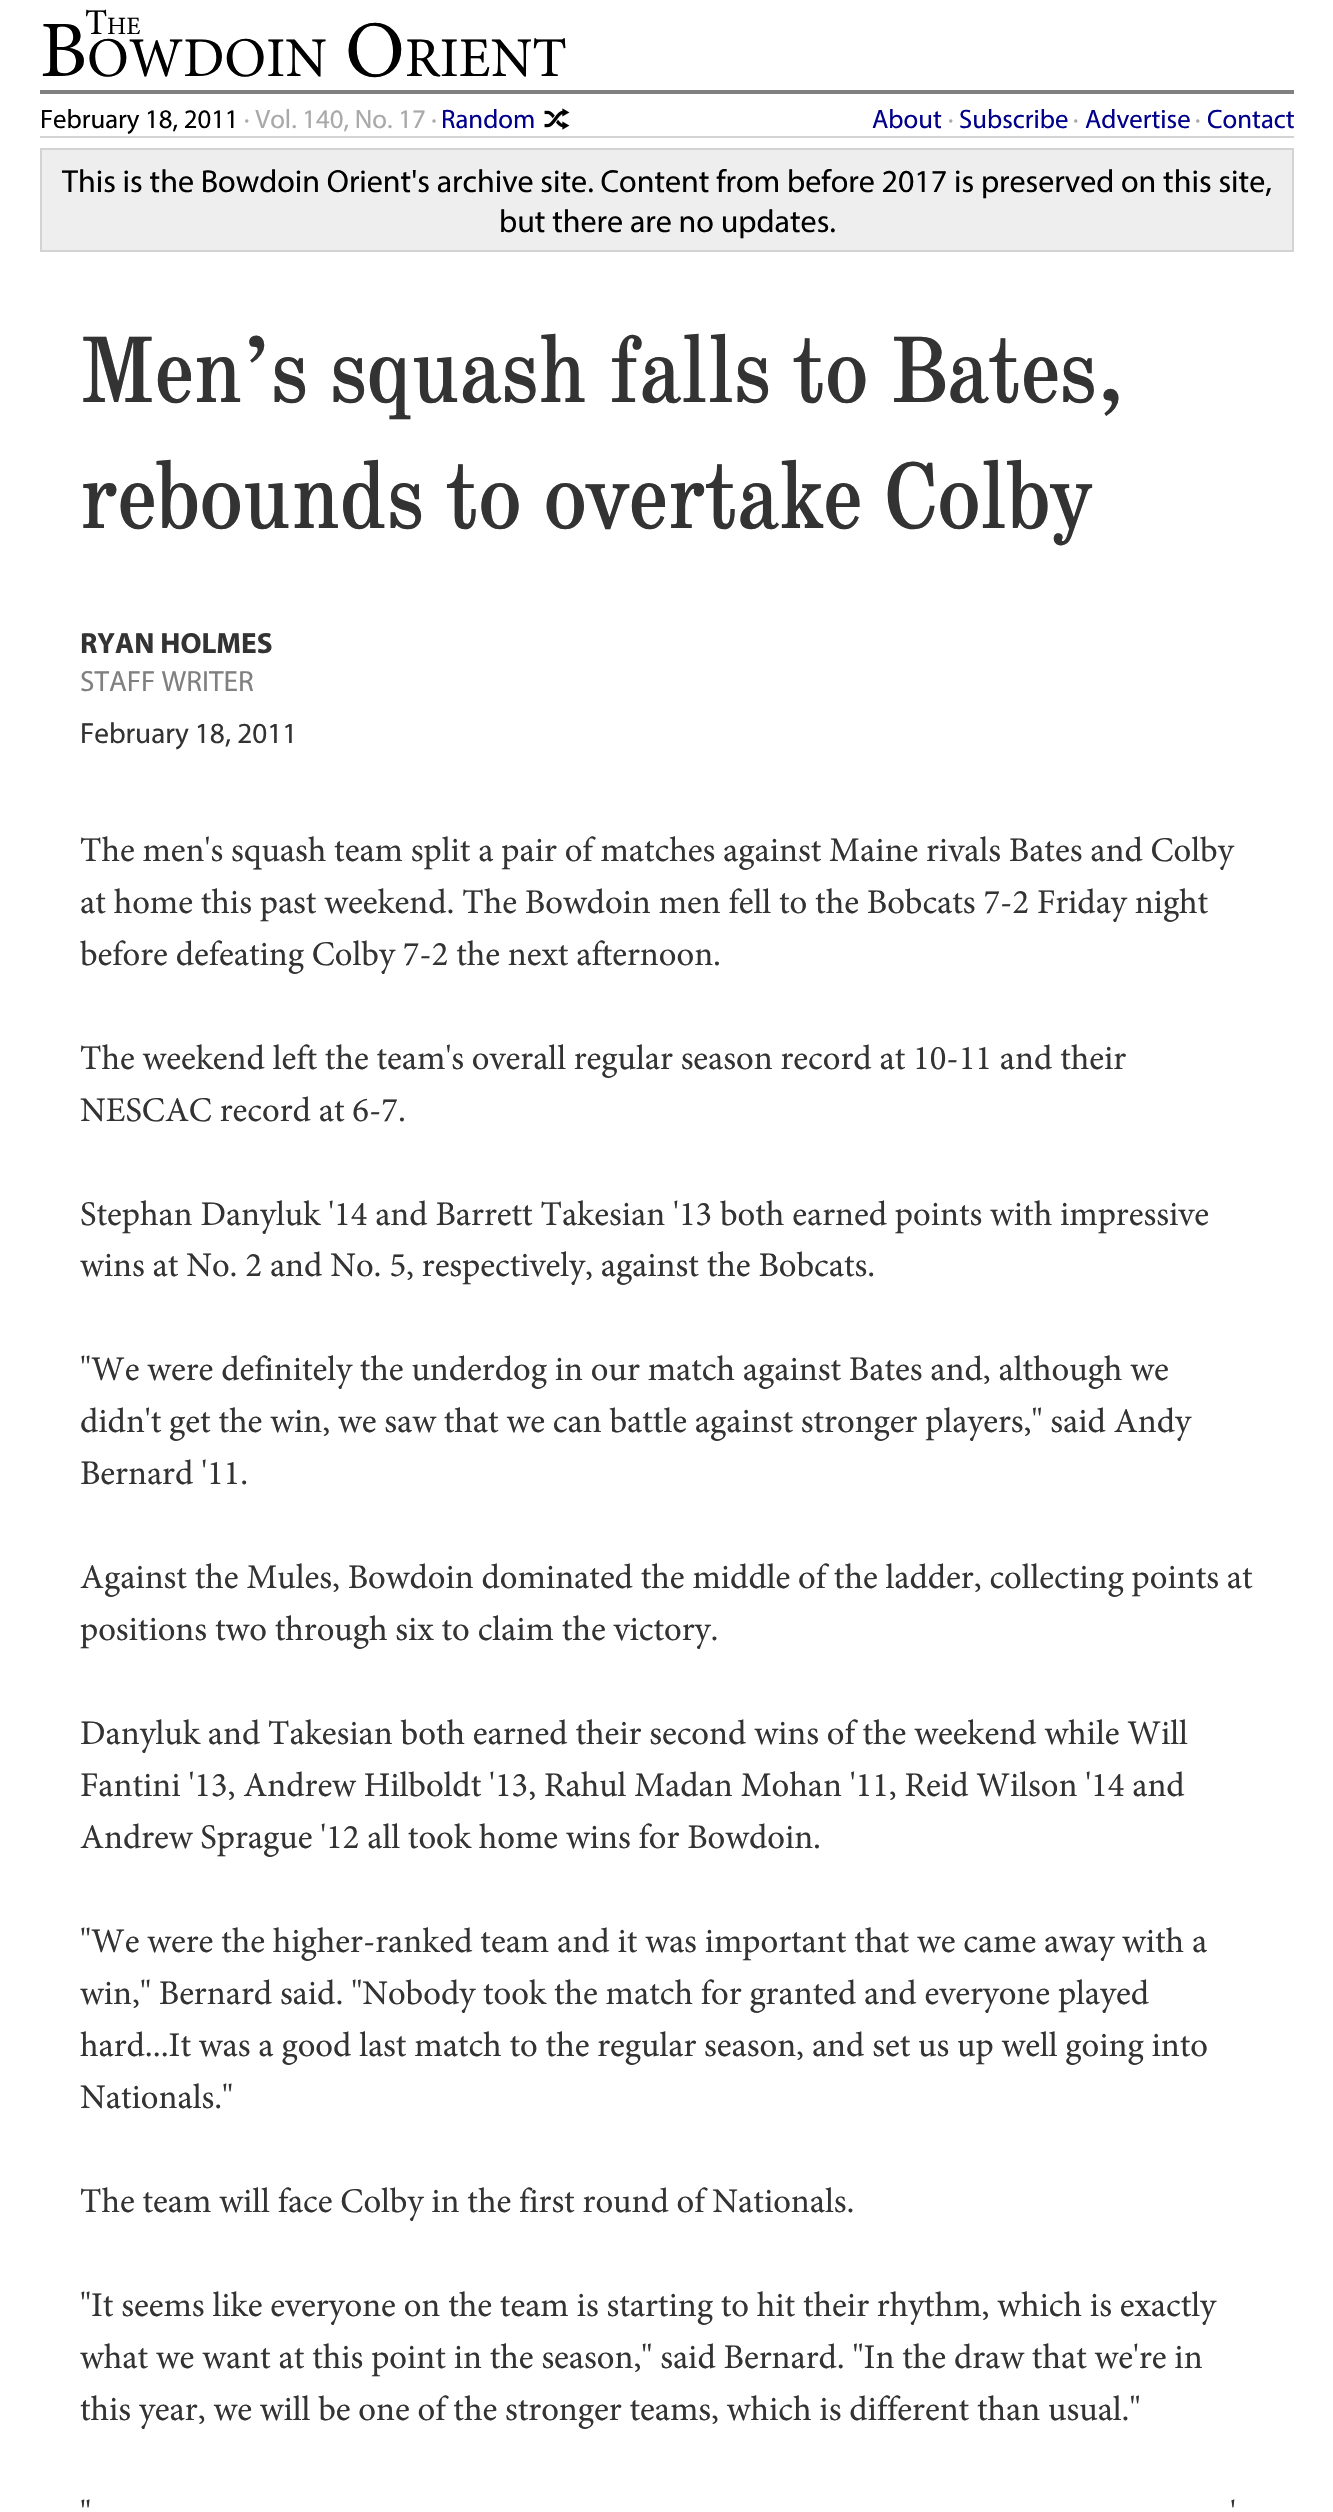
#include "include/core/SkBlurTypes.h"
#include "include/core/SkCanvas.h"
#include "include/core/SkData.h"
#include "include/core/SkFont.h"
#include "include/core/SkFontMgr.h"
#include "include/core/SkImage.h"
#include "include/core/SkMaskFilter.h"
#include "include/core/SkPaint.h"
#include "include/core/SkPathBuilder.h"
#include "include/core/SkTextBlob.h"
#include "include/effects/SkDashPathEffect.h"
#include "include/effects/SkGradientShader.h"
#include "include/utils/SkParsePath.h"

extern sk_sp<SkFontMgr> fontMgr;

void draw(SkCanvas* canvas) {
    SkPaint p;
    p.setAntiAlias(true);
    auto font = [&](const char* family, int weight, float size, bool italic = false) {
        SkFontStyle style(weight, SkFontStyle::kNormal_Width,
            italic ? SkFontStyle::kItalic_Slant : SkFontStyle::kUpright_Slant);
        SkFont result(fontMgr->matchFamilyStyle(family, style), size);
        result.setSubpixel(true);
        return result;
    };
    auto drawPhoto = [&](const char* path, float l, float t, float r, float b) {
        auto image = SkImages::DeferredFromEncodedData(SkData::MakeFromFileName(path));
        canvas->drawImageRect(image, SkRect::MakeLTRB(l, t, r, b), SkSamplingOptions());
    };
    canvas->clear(0xFFFFFFFF);
    p.setColor(0xFF808080);
    canvas->drawRect(SkRect::MakeLTRB(40, 90, 1294, 94), p);
    auto font1 = font("Minion", 400, 80);
    p.setColor(0xFF000000);
    canvas->drawString("B", 40, 76, font1, p);
    auto font2 = font("Minion", 400, 36);
    canvas->drawString("T", 85, 34, font2, p);
    auto font3 = font("Minion", 400, 25);
    canvas->drawString("HE", 107, 34, font3, p);
    canvas->drawString("O", 345, 76, font1, p);
    auto font4 = font("Minion", 400, 56);
    canvas->drawString("OWDOIN", 87, 76, font4, p);
    canvas->drawString("RIENT", 405, 76, font4, p);
    p.setColor(0xFFD3D3D3);
    canvas->drawRect(SkRect::MakeLTRB(40, 136, 1294, 138), p);
    auto font5 = font("Myriad", 400, 26.75f);
    p.setColor(0xFF000000);
    canvas->drawString("February 18, 2011", 40, 128, font5, p);
    p.setColor(0xFFA9A9A9);
    canvas->drawString("· Vol. 140, No. 17 ·", 244, 128, font5, p);
    p.setColor(0xFF00008B);
    canvas->drawString("Random", 441, 128, font5, p);
    drawPhoto("media/1.png", 544, 108, 570, 130);
    canvas->drawString("About", 872, 128, font5, p);
    p.setColor(0xFFA9A9A9);
    canvas->drawString("·", 948, 128, font5, p);
    p.setColor(0xFF00008B);
    canvas->drawString("Subscribe", 959, 128, font5, p);
    p.setColor(0xFFA9A9A9);
    canvas->drawString("·", 1073, 128, font5, p);
    p.setColor(0xFF00008B);
    canvas->drawString("Advertise", 1085, 128, font5, p);
    p.setColor(0xFFA9A9A9);
    canvas->drawString("·", 1195, 128, font5, p);
    p.setColor(0xFF00008B);
    canvas->drawString("Contact", 1207, 128, font5, p);
    p.setColor(0xFFEEEEEE);
    canvas->drawRect(SkRect::MakeLTRB(41, 149, 1293, 251), p);
    p.setStyle(SkPaint::kStroke_Style);
    p.setStrokeWidth(2);
    p.setColor(0xFFD3D3D3);
    canvas->drawRect(SkRect::MakeLTRB(41, 149, 1293, 251), p);
    auto font6 = font("Myriad", 400, 32);
    p.setStyle(SkPaint::kFill_Style);
    p.setColor(0xFF000000);
    canvas->drawString("This is the Bowdoin Orient's archive site. Content from before 2017 is preserved on this site,", 62, 192, font6, p);
    canvas->drawString("but there are no updates.", 499, 232, font6, p);
    auto font7 = font("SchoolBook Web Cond", 400, 96);
    p.setColor(0xFF333333);
    canvas->drawString("Men’s squash falls to Bates,", 80, 402, font7, p);
    canvas->drawString("rebounds to overtake Colby", 80, 528, font7, p);
    auto font8 = font("Myriad", 700, 29.25f);
    canvas->drawString("RYAN HOLMES", 80, 653, font8, p);
    auto font9 = font("Myriad", 400, 29.25f);
    p.setColor(0xFF808080);
    canvas->drawString("STAFF WRITER", 80, 691, font9, p);
    p.setColor(0xFF333333);
    canvas->drawString("February 18, 2011", 80, 743, font9, p);
    auto font10 = font("Minion", 400, 34.65f);
    {
        const struct { const char* s; float x, y; } items[] = {
            {"The men's squash team split a pair of matches against Maine rivals Bates and Colby", 80, 861},
            {"at home this past weekend. The Bowdoin men fell to the Bobcats 7-2 Friday night", 80, 913},
            {"before defeating Colby 7-2 the next afternoon.", 80, 965},
            {"The weekend left the team's overall regular season record at 10-11 and their", 80, 1069},
            {"NESCAC record at 6-7.", 80, 1121},
            {"Stephan Danyluk '14 and Barrett Takesian '13 both earned points with impressive", 80, 1225},
            {"wins at No. 2 and No. 5, respectively, against the Bobcats.", 80, 1276},
            {"\"We were definitely the underdog in our match against Bates and, although we", 80, 1380},
            {"didn't get the win, we saw that we can battle against stronger players,\" said Andy", 80, 1432},
            {"Bernard '11.", 80, 1484},
            {"Against the Mules, Bowdoin dominated the middle of the ladder, collecting points at", 80, 1588},
            {"positions two through six to claim the victory.", 80, 1640},
            {"Danyluk and Takesian both earned their second wins of the weekend while Will", 80, 1744},
            {"Fantini '13, Andrew Hilboldt '13, Rahul Madan Mohan '11, Reid Wilson '14 and", 80, 1796},
            {"Andrew Sprague '12 all took home wins for Bowdoin.", 80, 1848},
            {"\"We were the higher-ranked team and it was important that we came away with a", 80, 1952},
            {"win,\" Bernard said. \"Nobody took the match for granted and everyone played", 80, 2004},
            {"hard...It was a good last match to the regular season, and set us up well going into", 80, 2056},
            {"Nationals.\"", 80, 2108},
            {"The team will face Colby in the first round of Nationals.", 80, 2212},
            {"\"It seems like everyone on the team is starting to hit their rhythm, which is exactly", 80, 2316},
            {"what we want at this point in the season,\" said Bernard. \"In the draw that we're in", 80, 2368},
            {"this year, we will be one of the stronger teams, which is different than usual.\"", 80, 2420},
            {"\"", 80, 2524},
            {"'", 1230, 2524},
        };
        for (auto [s, x, y] : items) {
            canvas->drawString(s, x, y, font10, p);
        }
    }
}
